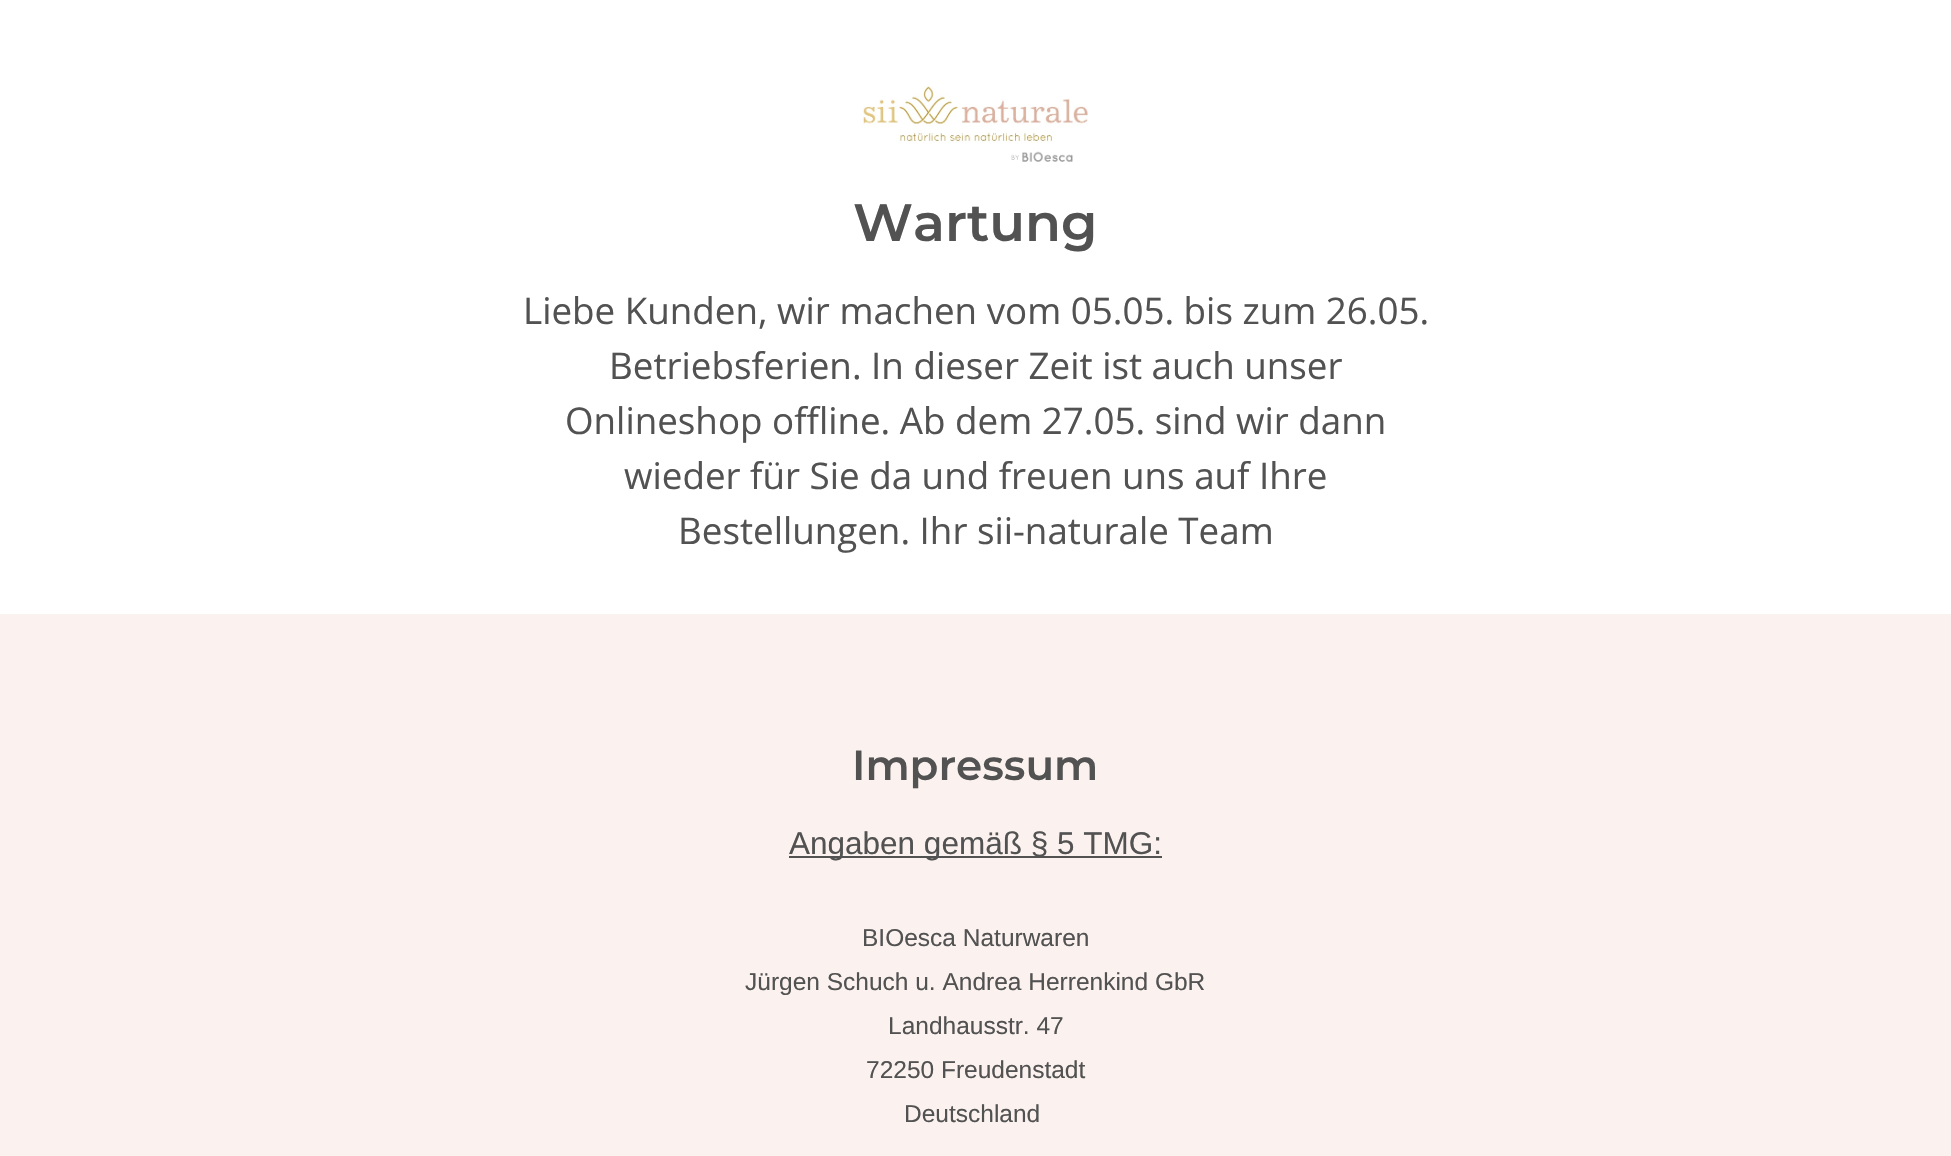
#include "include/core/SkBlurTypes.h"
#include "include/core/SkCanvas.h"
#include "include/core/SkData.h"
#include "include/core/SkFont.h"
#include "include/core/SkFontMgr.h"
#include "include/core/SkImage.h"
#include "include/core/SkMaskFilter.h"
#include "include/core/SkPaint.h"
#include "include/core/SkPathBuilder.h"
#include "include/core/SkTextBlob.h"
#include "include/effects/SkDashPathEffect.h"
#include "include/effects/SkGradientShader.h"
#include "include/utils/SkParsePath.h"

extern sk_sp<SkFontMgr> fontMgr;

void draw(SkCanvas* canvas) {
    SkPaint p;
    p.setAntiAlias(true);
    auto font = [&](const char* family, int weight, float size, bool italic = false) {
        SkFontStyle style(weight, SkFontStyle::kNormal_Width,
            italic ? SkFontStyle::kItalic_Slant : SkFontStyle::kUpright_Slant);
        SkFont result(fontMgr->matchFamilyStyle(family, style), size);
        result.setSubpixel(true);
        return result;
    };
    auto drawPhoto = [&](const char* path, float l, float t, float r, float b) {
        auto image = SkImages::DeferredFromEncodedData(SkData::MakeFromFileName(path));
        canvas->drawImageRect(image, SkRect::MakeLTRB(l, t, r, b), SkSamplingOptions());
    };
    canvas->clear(0xFFFFFFFF);
    drawPhoto("media/1.png", 861, 86, 1088, 162);
    auto font1 = font("Montserrat", 600, 52.5f);
    p.setColor(0xFF525252);
    canvas->drawString("Wartung", 853, 241, font1, p);
    auto font2 = font("Open Sans", 400, 36.75f);
    {
        const struct { const char* s; float x, y; } items[] = {
            {"Liebe Kunden, wir machen vom 05.05. bis zum 26.05.", 523, 324},
            {"Betriebsferien. In dieser Zeit ist auch unser", 609, 379},
            {"Onlineshop offline. Ab dem 27.05. sind wir dann", 565, 434},
            {"wieder für Sie da und freuen uns auf Ihre", 624, 489},
            {"Bestellungen. Ihr sii-naturale Team", 678, 544},
        };
        for (auto [s, x, y] : items) {
            canvas->drawString(s, x, y, font2, p);
        }
    }
    p.setColor(0xFFFBF2EF);
    canvas->drawRect(SkRect::MakeLTRB(0, 614, 1951, 1156), p);
    auto font3 = font("Montserrat", 600, 42);
    p.setColor(0xFF525252);
    canvas->drawString("Impressum", 852, 780, font3, p);
    canvas->drawRect(SkRect::MakeLTRB(789, 856, 1162, 858), p);
    auto font4 = font("Liberation Sans", 400, 31.5f);
    canvas->drawString("Angaben gemäß § 5 TMG:", 789, 854, font4, p);
    auto font5 = font("Liberation Sans", 400, 24.5f);
    {
        const struct { const char* s; float x, y; } items[] = {
            {"BIOesca Naturwaren", 862, 946},
            {"Jürgen Schuch u. Andrea Herrenkind GbR", 745, 990},
            {"Landhausstr. 47", 888, 1034},
            {"72250 Freudenstadt", 866, 1078},
            {"Deutschland", 904, 1122},
        };
        for (auto [s, x, y] : items) {
            canvas->drawString(s, x, y, font5, p);
        }
    }
}
